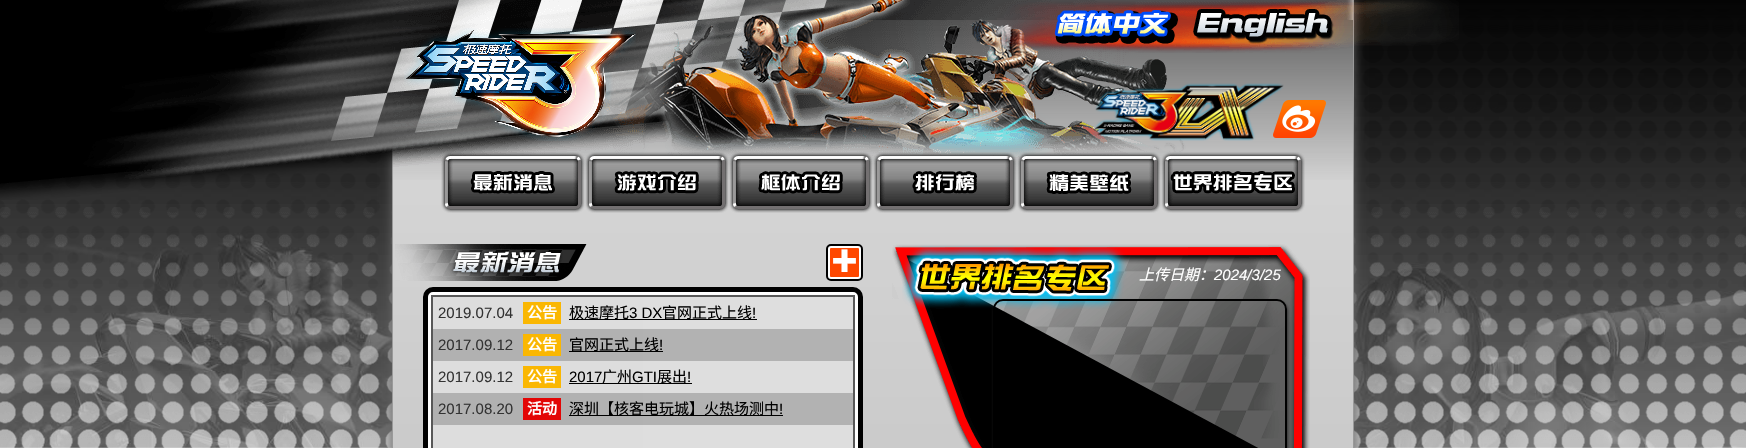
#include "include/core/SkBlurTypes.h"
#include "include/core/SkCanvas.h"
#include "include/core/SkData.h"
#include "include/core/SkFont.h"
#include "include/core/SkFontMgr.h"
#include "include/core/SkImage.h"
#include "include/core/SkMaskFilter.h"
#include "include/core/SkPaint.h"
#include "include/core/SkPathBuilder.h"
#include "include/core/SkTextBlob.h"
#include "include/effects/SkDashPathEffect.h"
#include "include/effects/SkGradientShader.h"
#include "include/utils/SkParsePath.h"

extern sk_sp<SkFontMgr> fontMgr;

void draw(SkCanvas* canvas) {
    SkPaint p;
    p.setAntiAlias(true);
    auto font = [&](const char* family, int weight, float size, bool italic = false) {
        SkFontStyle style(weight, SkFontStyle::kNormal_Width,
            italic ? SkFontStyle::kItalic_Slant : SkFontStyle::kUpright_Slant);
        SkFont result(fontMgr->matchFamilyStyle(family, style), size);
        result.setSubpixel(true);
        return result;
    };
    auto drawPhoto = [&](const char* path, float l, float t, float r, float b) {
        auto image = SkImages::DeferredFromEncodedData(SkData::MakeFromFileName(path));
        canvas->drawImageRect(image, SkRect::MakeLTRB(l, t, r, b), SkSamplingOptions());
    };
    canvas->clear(0xFFFFFFFF);
    drawPhoto("media/1.png", 0, 0, 1746, 448);
    drawPhoto("media/2.png", 0, 207, 1746, 448);
    drawPhoto("media/3.png", 0, 9, 1746, 313);
    p.setColor(0xFF666666);
    p.setMaskFilter(SkMaskFilter::MakeBlur(kNormal_SkBlurStyle, 5));
    canvas->drawRect(SkRect::MakeLTRB(392, 0, 1354, 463), p);
    p.setMaskFilter(nullptr);
    p.setColor(0xFF999999);
    canvas->drawRect(SkRect::MakeLTRB(1353, 0, 1354, 448), p);
    canvas->drawRect(SkRect::MakeLTRB(392, 147, 393, 448), p);
    {
        const SkColor colors[] = {0xFFDBDBDB, 0xFFB5B5B5};
        const float stops[] = {0, 1};
        const SkPoint ends[] = {{393, 0}, {393, 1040}};
        p.setShader(SkGradientShader::MakeLinear(ends, colors, stops, 2, SkTileMode::kClamp));
        p.setAlpha(255);
    }
    canvas->drawRect(SkRect::MakeLTRB(393, 1, 1353, 448), p);
    drawPhoto("media/4.png", 0, 0, 393, 200);
    {
        const SkColor colors[] = {0xFF545454, 0x00545454};
        const float stops[] = {0, 1};
        const SkPoint ends[] = {{393, 0}, {393, 184}};
        p.setShader(SkGradientShader::MakeLinear(ends, colors, stops, 2, SkTileMode::kClamp));
        p.setAlpha(255);
    }
    canvas->drawRect(SkRect::MakeLTRB(393, 0, 1353, 180), p);
    drawPhoto("media/5.png", 393, 0, 1353, 167);
    drawPhoto("media/6.png", 989, 0, 1353, 53);
    drawPhoto("media/7.png", 1054, 10, 1178, 44);
    drawPhoto("media/8.png", 1193, 9, 1334, 44);
    drawPhoto("media/9.png", 1353, 0, 1459, 46);
    drawPhoto("media/10.png", 404, 28, 636, 141);
    drawPhoto("media/11.png", 1094, 83, 1284, 141);
    drawPhoto("media/12.png", 1273, 100, 1326, 138);
    drawPhoto("media/13.png", 441, 152, 585, 213);
    drawPhoto("media/14.png", 470, 171, 555, 194);
    drawPhoto("media/15.png", 585, 152, 729, 213);
    drawPhoto("media/16.png", 614, 171, 699, 194);
    drawPhoto("media/17.png", 729, 152, 873, 213);
    drawPhoto("media/18.png", 758, 171, 843, 194);
    drawPhoto("media/19.png", 873, 152, 1017, 213);
    drawPhoto("media/20.png", 912, 171, 977, 194);
    drawPhoto("media/21.png", 1017, 152, 1161, 213);
    drawPhoto("media/22.png", 1046, 171, 1132, 194);
    drawPhoto("media/23.png", 1161, 152, 1305, 213);
    drawPhoto("media/24.png", 1170, 171, 1295, 194);
    drawPhoto("media/25.png", 395, 244, 587, 281);
    p.setShader(nullptr);
    p.setColor(0xFFFFFFFF);
    canvas->drawRoundRect(SkRect::MakeLTRB(827, 245, 862, 280), 4, 4, p);
    p.setStyle(SkPaint::kStroke_Style);
    p.setStrokeWidth(2);
    p.setColor(0xFF000000);
    canvas->drawRoundRect(SkRect::MakeLTRB(827, 245, 862, 280), 4, 4, p);
    p.setStyle(SkPaint::kFill_Style);
    p.setColor(0xFFFF4800);
    canvas->drawRoundRect(SkRect::MakeLTRB(830, 248, 859, 277), 1, 1, p);
    auto font1 = font("Noto Sans CJK SC", 400, 27);
    p.setColor(0xFFFFFFFF);
    canvas->drawString("✚", 831, 271, font1, p);
    canvas->drawRoundRect(SkRect::MakeLTRB(425.5f, 289.5f, 860.5f, 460.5f), 7.5f, 7.5f, p);
    p.setStyle(SkPaint::kStroke_Style);
    p.setStrokeWidth(5);
    p.setColor(0xFF000000);
    canvas->drawRoundRect(SkRect::MakeLTRB(425.5f, 289.5f, 860.5f, 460.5f), 7.5f, 7.5f, p);
    p.setStrokeWidth(2);
    p.setColor(0xFF585858);
    canvas->drawRect(SkRect::MakeLTRB(432, 296, 854, 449), p);
    p.setStyle(SkPaint::kFill_Style);
    {
        const SkColor colors[] = {0xFFDDDDDD, 0xFFDEDEDE};
        const float stops[] = {0, 1};
        const SkPoint ends[] = {{433, 297}, {853, 297}};
        p.setShader(SkGradientShader::MakeLinear(ends, colors, stops, 2, SkTileMode::kClamp));
        p.setAlpha(255);
    }
    canvas->drawRect(SkRect::MakeLTRB(433, 297, 853, 329), p);
    auto font2 = font("Liberation Sans", 400, 15);
    p.setShader(nullptr);
    p.setColor(0xFF333333);
    canvas->drawString("2019.07.04", 438, 318, font2, p);
    p.setColor(0xFFFAB702);
    canvas->drawRect(SkRect::MakeLTRB(523, 302, 561, 324), p);
    auto font3 = font("Noto Sans CJK SC", 700, 15);
    p.setColor(0xFFFFFFFF);
    canvas->drawString("公告", 527, 318, font3, p);
    p.setColor(0xFF000000);
    canvas->drawRect(SkRect::MakeLTRB(569, 319, 757, 320), p);
    auto font4 = font("Noto Sans CJK SC", 400, 15);
    canvas->drawString("极速摩托", 569, 318, font4, p);
    canvas->drawString("3 DX", 629, 318, font2, p);
    canvas->drawString("官网正式上线", 662, 318, font4, p);
    canvas->drawString("!", 752, 318, font2, p);
    {
        const SkColor colors[] = {0xFFB1B1B1, 0xFFB2B2B2};
        const float stops[] = {0, 1};
        const SkPoint ends[] = {{433, 329}, {853, 329}};
        p.setShader(SkGradientShader::MakeLinear(ends, colors, stops, 2, SkTileMode::kClamp));
        p.setAlpha(255);
    }
    canvas->drawRect(SkRect::MakeLTRB(433, 329, 853, 361), p);
    p.setShader(nullptr);
    p.setColor(0xFF333333);
    canvas->drawString("2017.09.12", 438, 350, font2, p);
    p.setColor(0xFFFAB702);
    canvas->drawRect(SkRect::MakeLTRB(523, 334, 561, 356), p);
    p.setColor(0xFFFFFFFF);
    canvas->drawString("公告", 527, 350, font3, p);
    p.setColor(0xFF000000);
    canvas->drawRect(SkRect::MakeLTRB(569, 351, 663, 352), p);
    canvas->drawString("官网正式上线", 569, 350, font4, p);
    canvas->drawString("!", 659, 350, font2, p);
    {
        const SkColor colors[] = {0xFFDDDDDD, 0xFFDEDEDE};
        const float stops[] = {0, 1};
        const SkPoint ends[] = {{433, 361}, {853, 361}};
        p.setShader(SkGradientShader::MakeLinear(ends, colors, stops, 2, SkTileMode::kClamp));
        p.setAlpha(255);
    }
    canvas->drawRect(SkRect::MakeLTRB(433, 361, 853, 393), p);
    p.setShader(nullptr);
    p.setColor(0xFF333333);
    canvas->drawString("2017.09.12", 438, 382, font2, p);
    p.setColor(0xFFFAB702);
    canvas->drawRect(SkRect::MakeLTRB(523, 366, 561, 388), p);
    p.setColor(0xFFFFFFFF);
    canvas->drawString("公告", 527, 382, font3, p);
    p.setColor(0xFF000000);
    canvas->drawString("2017", 569, 382, font2, p);
    canvas->drawRect(SkRect::MakeLTRB(569, 383, 692, 384), p);
    canvas->drawString("广州", 602, 382, font4, p);
    canvas->drawString("GTI", 632, 382, font2, p);
    canvas->drawString("展出", 657, 382, font4, p);
    canvas->drawString("!", 687, 382, font2, p);
    {
        const SkColor colors[] = {0xFFB1B1B1, 0xFFB2B2B2};
        const float stops[] = {0, 1};
        const SkPoint ends[] = {{433, 393}, {853, 393}};
        p.setShader(SkGradientShader::MakeLinear(ends, colors, stops, 2, SkTileMode::kClamp));
        p.setAlpha(255);
    }
    canvas->drawRect(SkRect::MakeLTRB(433, 393, 853, 425), p);
    p.setShader(nullptr);
    p.setColor(0xFF333333);
    canvas->drawString("2017.08.20", 438, 414, font2, p);
    p.setColor(0xFFE30606);
    canvas->drawRect(SkRect::MakeLTRB(523, 398, 561, 420), p);
    p.setColor(0xFFFFFFFF);
    canvas->drawString("活动", 527, 414, font3, p);
    p.setColor(0xFF000000);
    canvas->drawRect(SkRect::MakeLTRB(569, 415, 783, 416), p);
    canvas->drawString("深圳【核客电玩城】火热场测中", 569, 414, font4, p);
    canvas->drawString("!", 779, 414, font2, p);
    {
        const SkColor colors[] = {0xFFDDDDDD, 0xFFDEDEDE};
        const float stops[] = {0, 1};
        const SkPoint ends[] = {{433, 425}, {853, 425}};
        p.setShader(SkGradientShader::MakeLinear(ends, colors, stops, 2, SkTileMode::kClamp));
        p.setAlpha(255);
    }
    canvas->drawRect(SkRect::MakeLTRB(433, 425, 853, 448), p);
    drawPhoto("media/26.png", 892, 244, 1310, 448);
    drawPhoto("media/27.png", 902, 245, 1127, 309);
    auto font5 = font("Noto Sans CJK SC", 400, 15, true);
    p.setShader(nullptr);
    p.setColor(0xFFFFFFFF);
    canvas->drawString("上传日期：", 1139, 280, font5, p);
    auto font6 = font("Liberation Sans", 400, 15, true);
    canvas->drawString("2024/3/25", 1214, 280, font6, p);
    canvas->save();
    canvas->clipPath(SkPathBuilder(SkPathFillType::kEvenOdd).moveTo(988, 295).lineTo(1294, 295).lineTo(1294, 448).lineTo(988, 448).close().moveTo(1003, 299).lineTo(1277, 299).cubicTo(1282.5f, 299, 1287, 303.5f, 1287, 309).lineTo(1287, 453).cubicTo(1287, 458.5f, 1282.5f, 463, 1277, 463).lineTo(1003, 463).cubicTo(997.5f, 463, 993, 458.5f, 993, 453).lineTo(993, 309).cubicTo(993, 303.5f, 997.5f, 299, 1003, 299).close().detach(), true);
    p.setColor(0xFF333333);
    p.setMaskFilter(SkMaskFilter::MakeBlur(kNormal_SkBlurStyle, 1.5f));
    canvas->drawRoundRect(SkRect::MakeLTRB(994, 301, 1288, 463), 10, 10, p);
    p.setMaskFilter(nullptr);
    canvas->restore();
    p.setStyle(SkPaint::kStroke_Style);
    p.setColor(0xFF000000);
    canvas->drawRoundRect(SkRect::MakeLTRB(994, 300, 1286, 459), 9, 9, p);
}
